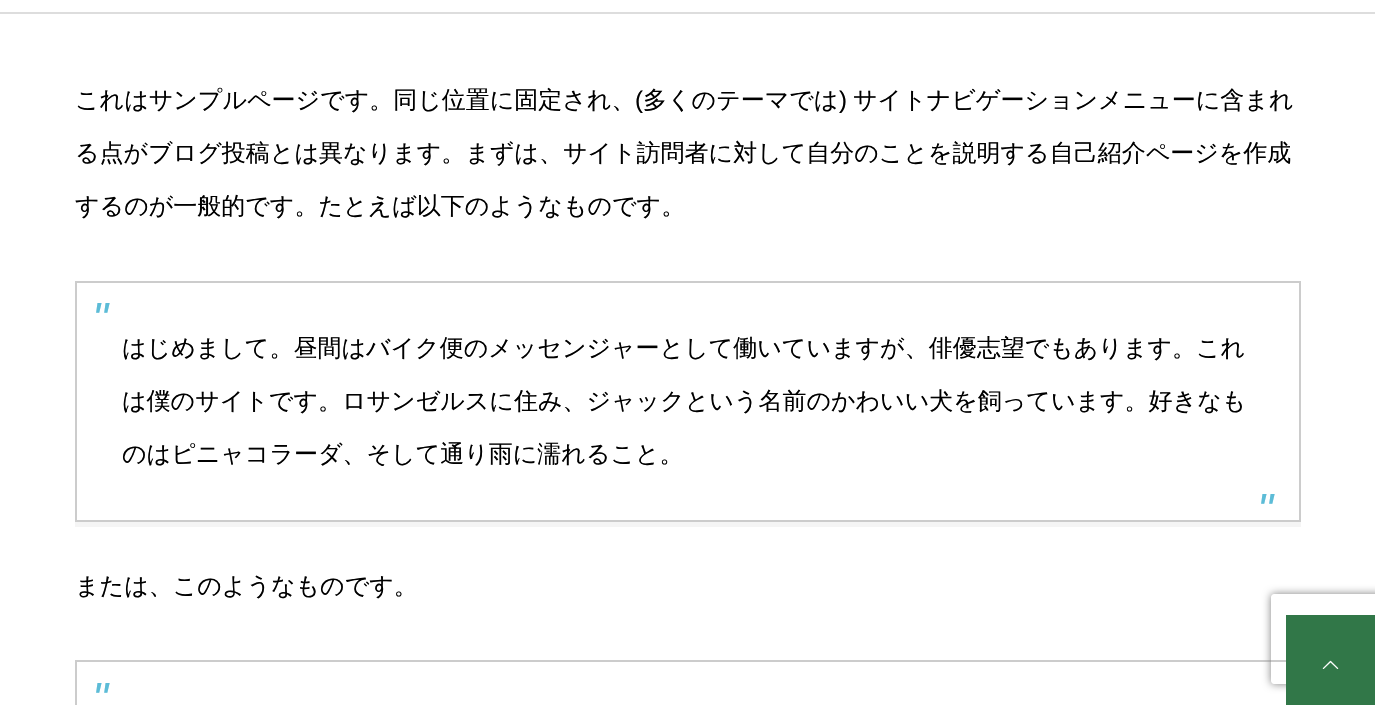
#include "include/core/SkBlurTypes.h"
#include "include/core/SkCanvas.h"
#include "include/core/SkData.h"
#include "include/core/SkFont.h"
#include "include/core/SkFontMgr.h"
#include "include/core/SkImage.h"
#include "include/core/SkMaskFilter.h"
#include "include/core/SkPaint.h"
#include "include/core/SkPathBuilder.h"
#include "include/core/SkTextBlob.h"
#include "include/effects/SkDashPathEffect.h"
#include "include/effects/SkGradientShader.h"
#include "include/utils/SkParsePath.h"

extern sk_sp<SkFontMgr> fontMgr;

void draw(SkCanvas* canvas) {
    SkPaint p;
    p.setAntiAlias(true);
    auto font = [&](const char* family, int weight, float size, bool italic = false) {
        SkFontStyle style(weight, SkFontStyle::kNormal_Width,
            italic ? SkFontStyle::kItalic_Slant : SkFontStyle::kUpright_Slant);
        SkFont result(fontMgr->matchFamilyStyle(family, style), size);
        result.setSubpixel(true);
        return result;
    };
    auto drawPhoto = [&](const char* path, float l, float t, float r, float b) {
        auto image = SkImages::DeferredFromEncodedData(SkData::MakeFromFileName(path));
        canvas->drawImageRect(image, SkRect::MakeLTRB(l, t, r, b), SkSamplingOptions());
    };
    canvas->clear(0xFFFFFFFF);
    p.setColor(0xFFDDDDDD);
    canvas->drawRect(SkRect::MakeLTRB(0, 12, 1375, 14), p);
    auto font1 = font("WenQuanYi Zen Hei", 500, 24);
    p.setColor(0xFF000000);
    canvas->drawString("これはサンプルページです。同じ位置に固定され、", 75, 108, font1, p);
    auto font2 = font("Liberation Sans", 400, 24);
    canvas->drawString("(", 635, 108, font2, p);
    canvas->drawString("多くのテーマでは", 643, 108, font1, p);
    canvas->drawString(")", 839, 108, font2, p);
    {
        const struct { const char* s; float x, y; } items[] = {
            {"サイトナビゲーションメニューに含まれ", 853, 108},
            {"る点がブログ投稿とは異なります。まずは、サイト訪問者に対して自分のことを説明する自己紹介ページを作成", 75, 161},
            {"するのが一般的です。たとえば以下のようなものです。", 75, 214},
        };
        for (auto [s, x, y] : items) {
            canvas->drawString(s, x, y, font1, p);
        }
    }
    p.setColor(0xFFF5F5F5);
    canvas->drawPath(SkPathBuilder().moveTo(75, 522).lineTo(75, 527).lineTo(1301, 527).lineTo(1301, 285).lineTo(1300, 285).lineTo(1300, 522).close().detach(), p);
    p.setStyle(SkPaint::kStroke_Style);
    p.setStrokeWidth(2);
    p.setColor(0xFFCCCCCC);
    canvas->drawRect(SkRect::MakeLTRB(76, 282, 1300, 521), p);
    auto font3 = font("Liberation Sans", 400, 45, true);
    p.setStyle(SkPaint::kFill_Style);
    p.setColor(0xFF5CBCD7);
    canvas->drawString("\"", 92, 334, font3, p);
    p.setColor(0xFF000000);
    {
        const struct { const char* s; float x, y; } items[] = {
            {"はじめまして。昼間はバイク便のメッセンジャーとして働いていますが、俳優志望でもあります。これ", 122, 356},
            {"は僕のサイトです。ロサンゼルスに住み、ジャックという名前のかわいい犬を飼っています。好きなも", 122, 409},
            {"のはピニャコラーダ、そして通り雨に濡れること。", 122, 462},
        };
        for (auto [s, x, y] : items) {
            canvas->drawString(s, x, y, font1, p);
        }
    }
    p.setColor(0xFF5CBCD7);
    canvas->drawString("\"", 1257, 525, font3, p);
    p.setColor(0xFF000000);
    canvas->drawString("または、このようなものです。", 75, 594, font1, p);
    p.setStyle(SkPaint::kStroke_Style);
    p.setColor(0xFFCCCCCC);
    canvas->drawRect(SkRect::MakeLTRB(76, 661, 1300, 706), p);
    p.setStyle(SkPaint::kFill_Style);
    p.setColor(0xFF5CBCD7);
    canvas->drawString("\"", 92, 714, font3, p);
    canvas->save();
    canvas->clipPath(SkPathBuilder(SkPathFillType::kEvenOdd).moveTo(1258, 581).lineTo(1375, 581).lineTo(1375, 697).lineTo(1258, 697).close().moveTo(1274, 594).lineTo(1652, 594).cubicTo(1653.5f, 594, 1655, 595.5f, 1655, 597).lineTo(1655, 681).cubicTo(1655, 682.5f, 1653.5f, 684, 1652, 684).lineTo(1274, 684).cubicTo(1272.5f, 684, 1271, 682.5f, 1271, 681).lineTo(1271, 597).cubicTo(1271, 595.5f, 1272.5f, 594, 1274, 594).close().detach(), true);
    p.setColor(0xFF808080);
    p.setMaskFilter(SkMaskFilter::MakeBlur(kNormal_SkBlurStyle, 4));
    canvas->drawRoundRect(SkRect::MakeLTRB(1271, 594, 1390, 684), 3, 3, p);
    p.setMaskFilter(nullptr);
    canvas->restore();
    p.setColor(0xFF317748);
    canvas->drawRect(SkRect::MakeLTRB(1286, 615, 1375, 705), p);
    drawPhoto("media/1.png", 1322, 660, 1339, 669);
}
